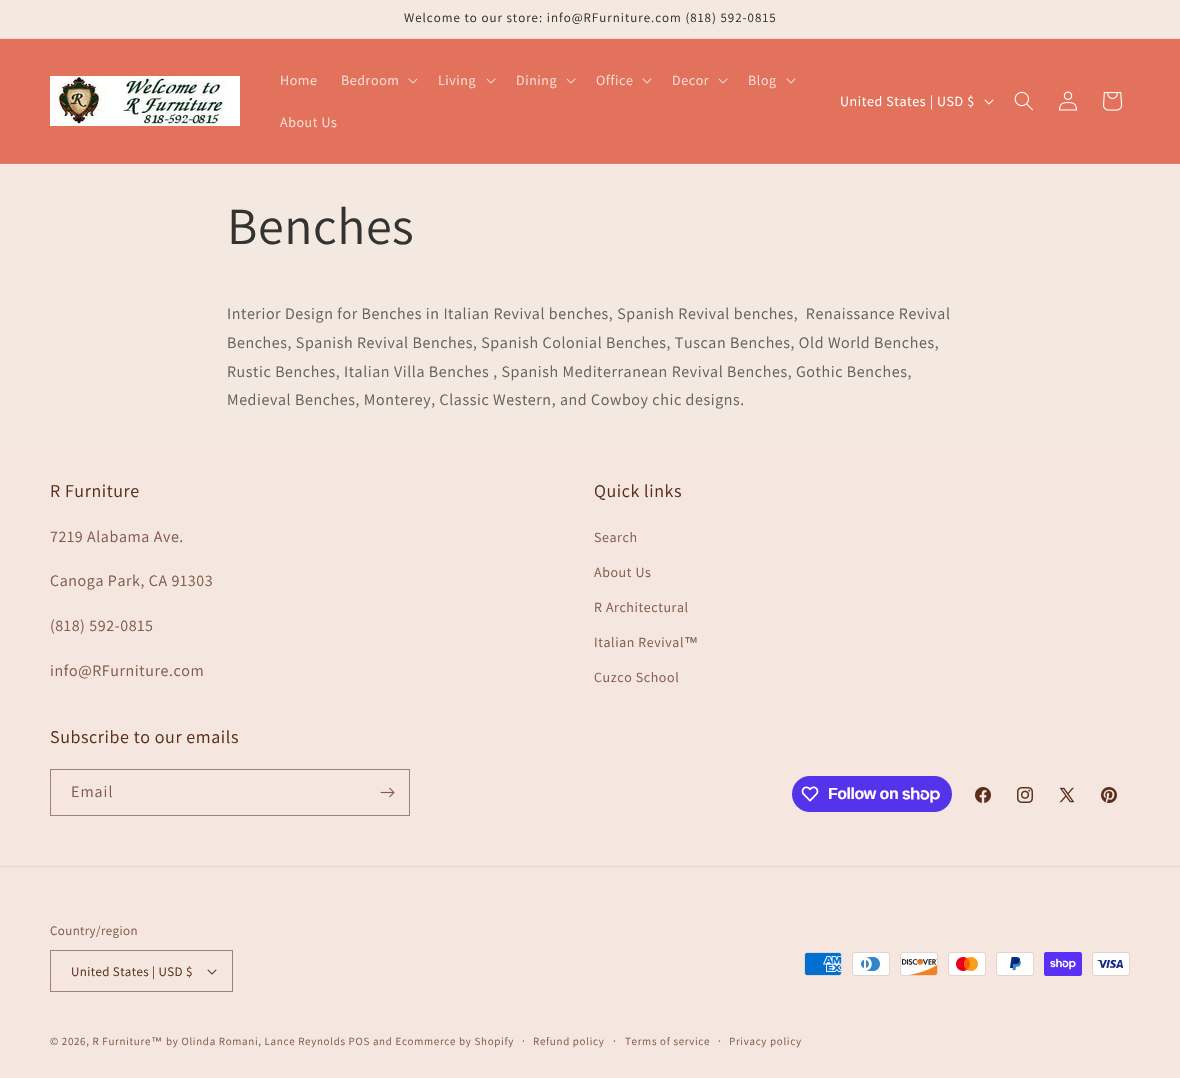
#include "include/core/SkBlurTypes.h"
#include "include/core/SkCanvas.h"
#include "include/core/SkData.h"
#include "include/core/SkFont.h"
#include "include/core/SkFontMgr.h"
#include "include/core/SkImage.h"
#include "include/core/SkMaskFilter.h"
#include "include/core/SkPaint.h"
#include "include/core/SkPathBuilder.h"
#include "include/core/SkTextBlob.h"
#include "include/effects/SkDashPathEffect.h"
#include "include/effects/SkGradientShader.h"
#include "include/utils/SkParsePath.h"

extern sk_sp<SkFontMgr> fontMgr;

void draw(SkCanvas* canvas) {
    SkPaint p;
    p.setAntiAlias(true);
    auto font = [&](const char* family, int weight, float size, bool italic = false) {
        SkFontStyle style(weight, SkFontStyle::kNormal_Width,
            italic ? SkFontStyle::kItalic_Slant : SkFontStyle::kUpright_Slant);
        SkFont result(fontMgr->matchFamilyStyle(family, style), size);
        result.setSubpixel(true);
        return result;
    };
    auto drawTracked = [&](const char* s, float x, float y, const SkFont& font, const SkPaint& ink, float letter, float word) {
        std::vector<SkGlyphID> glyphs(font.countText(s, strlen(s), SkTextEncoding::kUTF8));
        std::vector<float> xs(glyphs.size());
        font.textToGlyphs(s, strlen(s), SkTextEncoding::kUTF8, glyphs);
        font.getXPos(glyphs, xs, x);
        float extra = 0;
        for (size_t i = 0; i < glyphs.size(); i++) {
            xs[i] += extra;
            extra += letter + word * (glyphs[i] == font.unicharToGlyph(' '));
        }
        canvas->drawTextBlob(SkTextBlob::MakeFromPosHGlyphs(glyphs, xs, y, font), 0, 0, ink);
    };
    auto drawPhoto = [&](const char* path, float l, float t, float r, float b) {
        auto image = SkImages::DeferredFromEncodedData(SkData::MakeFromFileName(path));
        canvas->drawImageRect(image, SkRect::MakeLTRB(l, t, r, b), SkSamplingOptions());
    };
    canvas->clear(0xFFF4E9E0);
    p.setColor(0xFFE5DAD2);
    canvas->drawRect(SkRect::MakeLTRB(0, 38, 1180, 39), p);
    auto font1 = font("Assistant", 400, 13);
    p.setColor(0xFF333331);
    drawTracked("Welcome to our store: info@RFurniture.com (818) 592-0815", 404, 22, font1, p, 1, 0);
    p.setColor(0xFFE2725B);
    canvas->drawRect(SkRect::MakeLTRB(0, 39, 1180, 163), p);
    p.setColor(0xFFE47D68);
    canvas->drawRect(SkRect::MakeLTRB(0, 163, 1180, 164), p);
    drawPhoto("media/1.png", 50, 76, 240, 126);
    auto font2 = font("Assistant", 400, 14);
    p.setColor(0xFFF8DCD6);
    drawTracked("Home", 280, 85, font2, p, 0.6f, 0);
    drawTracked("Bedroom", 341, 85, font2, p, 0.6f, 0);
    drawPhoto("media/2.png", 408, 78, 418, 84);
    drawTracked("Living", 438, 85, font2, p, 0.6f, 0);
    drawPhoto("media/2.png", 486, 78, 496, 84);
    drawTracked("Dining", 516, 85, font2, p, 0.6f, 0);
    drawPhoto("media/2.png", 566, 78, 576, 84);
    drawTracked("Office", 596, 85, font2, p, 0.6f, 0);
    drawPhoto("media/2.png", 642, 78, 652, 84);
    drawTracked("Decor", 672, 85, font2, p, 0.6f, 0);
    drawPhoto("media/2.png", 718, 78, 728, 84);
    drawTracked("Blog", 748, 85, font2, p, 0.6f, 0);
    drawPhoto("media/2.png", 786, 78, 796, 84);
    drawTracked("About Us", 280, 127, font2, p, 0.6f, 0);
    p.setColor(0xFFFFFFFF);
    drawTracked("United States | USD $", 840, 106, font2, p, 0.6f, 0);
    drawPhoto("media/3.png", 984, 99, 994, 105);
    drawPhoto("media/4.png", 1014, 91, 1033, 111);
    drawPhoto("media/5.png", 1059, 91, 1077, 111);
    drawPhoto("media/6.png", 1103, 92, 1123, 111);
    auto font3 = font("Assistant", 400, 52);
    p.setColor(0xFF333331);
    drawTracked("Benches", 227, 244, font3, p, 0.6f, 0);
    auto font4 = font("Assistant", 400, 16);
    p.setColor(0xFF63615D);
    {
        const struct { const char* s; float x, y; } items[] = {
            {"Interior Design for Benches in Italian Revival benches, Spanish Revival benches,  Renaissance Revival", 227, 319},
            {"Benches, Spanish Revival Benches, Spanish Colonial Benches, Tuscan Benches, Old World Benches,", 227, 348},
            {"Rustic Benches, Italian Villa Benches , Spanish Mediterranean Revival Benches, Gothic Benches,", 227, 377},
            {"Medieval Benches, Monterey, Classic Western, and Cowboy chic designs.", 227, 405},
        };
        for (auto [s, x, y] : items) {
            drawTracked(s, x, y, font4, p, 0.6f, 0);
        }
    }
    p.setColor(0xFFF5E6E0);
    canvas->drawRect(SkRect::MakeLTRB(0, 443, 1180, 1078), p);
    auto font5 = font("Assistant", 400, 18);
    p.setColor(0xFF5C2E1A);
    drawTracked("R Furniture", 50, 497, font5, p, 0.6f, 0);
    p.setColor(0xFF825C4C);
    {
        const struct { const char* s; float x, y; } items[] = {
            {"7219 Alabama Ave.", 50, 542},
            {"Canoga Park, CA 91303", 50, 586},
            {"(818) 592-0815", 50, 631},
            {"info@RFurniture.com", 50, 676},
        };
        for (auto [s, x, y] : items) {
            drawTracked(s, x, y, font4, p, 0.6f, 0);
        }
    }
    p.setColor(0xFF5C2E1A);
    drawTracked("Quick links", 594, 497, font5, p, 0.6f, 0);
    p.setColor(0xFF825C4C);
    {
        const struct { const char* s; float x, y; } items[] = {
            {"Search", 594, 542},
            {"About Us", 594, 577},
            {"R Architectural", 594, 612},
            {"Italian Revival", 594, 647},
        };
        for (auto [s, x, y] : items) {
            drawTracked(s, x, y, font2, p, 0.6f, 0);
        }
    }
    auto font6 = font("Liberation Sans", 400, 14);
    drawTracked("™", 684, 647, font6, p, 0.6f, 0);
    drawTracked("Cuzco School", 594, 682, font2, p, 0.6f, 0);
    p.setColor(0xFF5C2E1A);
    drawTracked("Subscribe to our emails", 50, 743, font5, p, 0.6f, 0);
    p.setStyle(SkPaint::kStroke_Style);
    p.setStrokeWidth(1);
    p.setColor(0xFFA18173);
    canvas->drawRect(SkRect::MakeLTRB(50.5f, 769.5f, 409.5f, 815.5f), p);
    p.setStyle(SkPaint::kFill_Style);
    p.setColor(0xFF825C4C);
    drawTracked("Email", 71, 797, font4, p, 1, 0);
    drawPhoto("media/7.png", 380, 787, 395, 798);
    p.setColor(0xFF5433EB);
    canvas->drawRoundRect(SkRect::MakeLTRB(792, 776, 952, 812), 18, 18, p);
    drawPhoto("media/8.png", 801, 786, 819, 802);
    auto font7 = font("Liberation Sans", 700, 16);
    p.setColor(0xFFFFFFFF);
    drawTracked("Follow on", 828, 799, font7, p, -0.5f, 0);
    drawPhoto("media/9.png", 902, 787, 940, 803);
    drawPhoto("media/10.png", 975, 787, 991, 803);
    drawPhoto("media/11.png", 1017, 787, 1033, 803);
    drawPhoto("media/12.png", 1059, 787, 1075, 803);
    drawPhoto("media/13.png", 1101, 787, 1117, 803);
    p.setColor(0xFFE9D7D0);
    canvas->drawRect(SkRect::MakeLTRB(0, 866, 1180, 867), p);
    p.setColor(0xFF825C4C);
    drawTracked("Country/region", 50, 935, font1, p, 0.4f, 0);
    drawPhoto("media/14.png", 207, 969, 217, 975);
    p.setStyle(SkPaint::kStroke_Style);
    p.setColor(0xFFA18173);
    canvas->drawRect(SkRect::MakeLTRB(50.5f, 950.5f, 232.5f, 991.5f), p);
    p.setStyle(SkPaint::kFill_Style);
    p.setColor(0xFF5C2E1A);
    drawTracked("United States | USD $", 71, 976, font1, p, 0.4f, 0);
    drawPhoto("media/15.png", 804, 952, 842, 976);
    drawPhoto("media/16.png", 852, 952, 890, 976);
    drawPhoto("media/17.png", 900, 952, 938, 976);
    drawPhoto("media/18.png", 948, 952, 986, 976);
    drawPhoto("media/19.png", 996, 952, 1034, 976);
    drawPhoto("media/20.png", 1044, 952, 1082, 976);
    drawPhoto("media/21.png", 1092, 952, 1130, 976);
    auto font8 = font("Assistant", 400, 11);
    p.setColor(0xFF825C4C);
    drawTracked("© 2026, R Furniture", 50, 1045, font8, p, 0.7f, 0);
    auto font9 = font("Liberation Sans", 400, 11);
    drawTracked("™", 151, 1045, font9, p, 0.7f, 0);
    drawTracked("by Olinda Romani, Lance Reynolds POS and Ecommerce by Shopify", 166, 1045, font8, p, 0.7f, 0);
    auto font10 = font("Assistant", 400, 12);
    drawTracked("·", 522, 1045, font10, p, 0.7f, 0);
    drawTracked("Refund policy", 533, 1045, font8, p, 0.7f, 0);
    drawTracked("·", 613, 1045, font10, p, 0.7f, 0);
    drawTracked("Terms of service", 625, 1045, font8, p, 0.7f, 0);
    drawTracked("·", 718, 1045, font10, p, 0.7f, 0);
    drawTracked("Privacy policy", 729, 1045, font8, p, 0.7f, 0);
}
